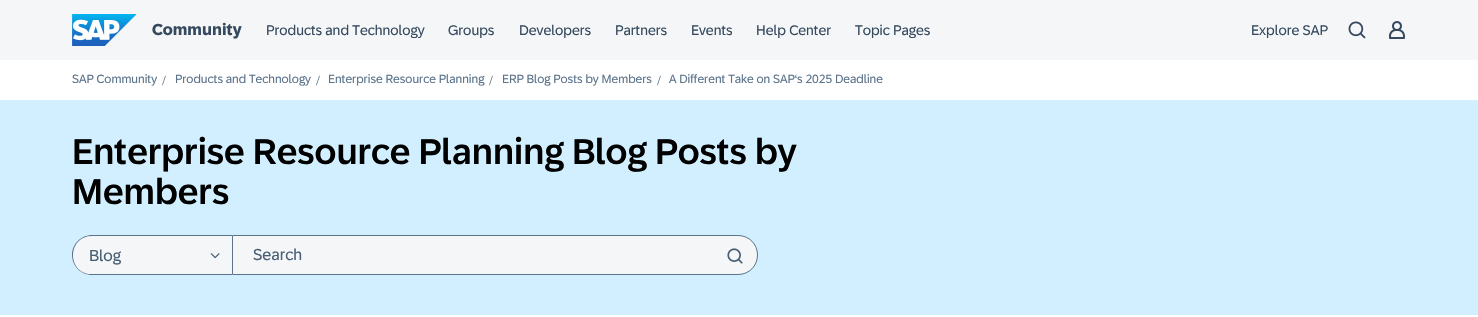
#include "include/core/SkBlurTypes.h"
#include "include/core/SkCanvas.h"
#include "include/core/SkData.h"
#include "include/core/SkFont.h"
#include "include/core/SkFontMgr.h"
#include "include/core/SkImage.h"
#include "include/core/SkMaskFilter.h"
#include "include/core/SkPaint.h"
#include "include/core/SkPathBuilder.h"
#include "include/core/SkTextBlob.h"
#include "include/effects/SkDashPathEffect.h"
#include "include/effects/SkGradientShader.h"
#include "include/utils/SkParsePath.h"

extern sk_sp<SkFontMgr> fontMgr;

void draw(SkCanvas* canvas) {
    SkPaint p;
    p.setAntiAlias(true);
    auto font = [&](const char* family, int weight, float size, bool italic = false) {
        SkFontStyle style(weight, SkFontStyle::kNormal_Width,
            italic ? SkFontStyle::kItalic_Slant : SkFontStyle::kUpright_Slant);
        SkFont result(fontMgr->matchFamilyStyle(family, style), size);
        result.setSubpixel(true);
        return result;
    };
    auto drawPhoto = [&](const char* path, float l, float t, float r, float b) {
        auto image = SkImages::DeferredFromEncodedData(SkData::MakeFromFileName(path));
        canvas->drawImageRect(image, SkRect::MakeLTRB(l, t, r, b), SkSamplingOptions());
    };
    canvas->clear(0xFFFFFFFF);
    p.setColor(0xFFF5F6F7);
    canvas->drawRect(SkRect::MakeLTRB(0, 0, 1478, 60), p);
    drawPhoto("media/1.png", 72, 14, 136, 46);
    auto font1 = font("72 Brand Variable", 700, 16);
    p.setColor(0xFF354A5F);
    canvas->drawString("Community", 152, 35, font1, p);
    auto font2 = font("72 Brand Variable", 400, 14);
    {
        const struct { const char* s; float x, y; } items[] = {
            {"Products and Technology", 266, 35},
            {"Groups", 448, 35},
            {"Developers", 519, 35},
            {"Partners", 615, 35},
            {"Events", 691, 35},
            {"Help Center", 756, 35},
            {"Topic Pages", 855, 35},
            {"Explore SAP", 1251, 35},
        };
        for (auto [s, x, y] : items) {
            canvas->drawString(s, x, y, font2, p);
        }
    }
    drawPhoto("media/2.png", 1348, 21, 1366, 39);
    drawPhoto("media/3.png", 1389, 21, 1405, 39);
    auto font3 = font("72 Brand Variable", 400, 12);
    p.setColor(0xFF5B738B);
    canvas->drawString("SAP Community", 72, 83, font3, p);
    auto font4 = font("Liberation Serif", 400, 14);
    canvas->drawString("/", 162, 85, font4, p);
    canvas->drawString("Products and Technology", 175, 83, font3, p);
    canvas->drawString("/", 316, 85, font4, p);
    canvas->drawString("Enterprise Resource Planning", 328, 83, font3, p);
    canvas->drawString("/", 489, 85, font4, p);
    canvas->drawString("ERP Blog Posts by Members", 502, 83, font3, p);
    canvas->drawString("/", 657, 85, font4, p);
    canvas->drawString("A Different Take on SAP‘s 2025 Deadline", 669, 83, font3, p);
    p.setColor(0xFFD1EFFF);
    canvas->drawRect(SkRect::MakeLTRB(0, 100, 1478, 315), p);
    auto font5 = font("72 Brand Variable", 500, 36);
    p.setColor(0xFF000000);
    canvas->drawString("Enterprise Resource Planning Blog Posts by", 72, 164, font5, p);
    canvas->drawString("Members", 72, 204, font5, p);
    p.setColor(0xFFF5F6F7);
    canvas->drawPath(SkPathBuilder().moveTo(92, 235).lineTo(232, 235).lineTo(232, 275).lineTo(92, 275).cubicTo(81, 275, 72, 266, 72, 255).cubicTo(72, 244, 81, 235, 92, 235).close().detach(), p);
    p.setColor(0xFF5B738B);
    canvas->drawPath(SkPathBuilder(SkPathFillType::kEvenOdd).moveTo(92, 235).lineTo(232, 235).lineTo(232, 275).lineTo(92, 275).cubicTo(81, 275, 72, 266, 72, 255).cubicTo(72, 244, 81, 235, 92, 235).close().moveTo(92, 236).lineTo(232, 236).lineTo(232, 274).lineTo(88, 274).cubicTo(66, 269, 69, 236, 92, 236).close().detach(), p);
    auto font6 = font("72 Brand Variable", 400, 16);
    p.setColor(0xFF475E75);
    canvas->drawString("Blog", 89, 261, font6, p);
    drawPhoto("media/4.png", 210, 253, 220, 259);
    p.setColor(0xFFF5F6F7);
    canvas->drawPath(SkPathBuilder().moveTo(232.5f, 235.5f).lineTo(738, 235.5f).cubicTo(749, 235.5f, 757.5f, 244, 757.5f, 255).cubicTo(757.5f, 266, 749, 274.5f, 738, 274.5f).lineTo(232.5f, 274.5f).close().detach(), p);
    p.setStyle(SkPaint::kStroke_Style);
    p.setStrokeWidth(1);
    p.setColor(0xFF5B738B);
    canvas->drawPath(SkPathBuilder().moveTo(232.5f, 235.5f).lineTo(738, 235.5f).cubicTo(749, 235.5f, 757.5f, 244, 757.5f, 255).cubicTo(757.5f, 266, 749, 274.5f, 738, 274.5f).lineTo(232.5f, 274.5f).close().detach(), p);
    p.setStyle(SkPaint::kFill_Style);
    p.setColor(0xFF475E75);
    canvas->drawString("Search", 253, 260, font6, p);
    drawPhoto("media/5.png", 727, 248, 743, 264);
}
